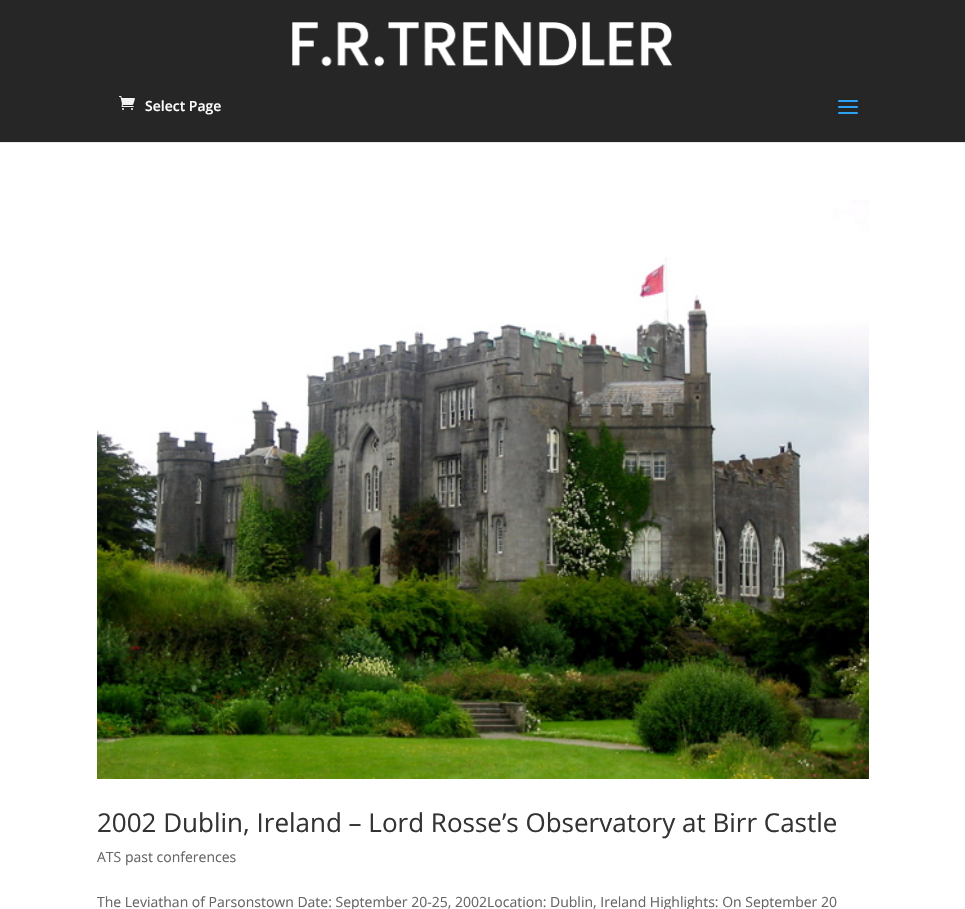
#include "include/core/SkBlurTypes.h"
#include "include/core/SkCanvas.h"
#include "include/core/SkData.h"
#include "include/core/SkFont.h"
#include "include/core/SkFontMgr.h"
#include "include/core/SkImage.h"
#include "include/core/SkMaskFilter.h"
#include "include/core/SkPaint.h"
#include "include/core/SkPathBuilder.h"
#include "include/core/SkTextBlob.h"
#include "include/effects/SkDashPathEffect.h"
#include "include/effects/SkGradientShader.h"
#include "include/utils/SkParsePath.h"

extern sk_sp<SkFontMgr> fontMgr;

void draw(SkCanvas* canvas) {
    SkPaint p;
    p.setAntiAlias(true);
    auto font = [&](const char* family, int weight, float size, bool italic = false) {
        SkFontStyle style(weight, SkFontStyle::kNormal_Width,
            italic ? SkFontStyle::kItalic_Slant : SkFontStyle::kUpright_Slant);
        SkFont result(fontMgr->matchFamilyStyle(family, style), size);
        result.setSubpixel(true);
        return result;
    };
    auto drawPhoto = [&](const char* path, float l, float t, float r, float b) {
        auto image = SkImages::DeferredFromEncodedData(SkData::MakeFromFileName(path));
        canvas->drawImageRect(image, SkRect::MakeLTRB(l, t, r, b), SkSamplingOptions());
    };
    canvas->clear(0xFFFFFFFF);
    p.setColor(0xFFE6E6E6);
    canvas->drawRect(SkRect::MakeLTRB(0, 142, 965, 143), p);
    p.setColor(0xFF262626);
    canvas->drawRect(SkRect::MakeLTRB(0, 0, 965, 142), p);
    drawPhoto("media/1.png", 292, 22, 673, 67);
    drawPhoto("media/2.png", 119, 96, 135, 110);
    p.setColor(0x0D000000);
    canvas->drawRect(SkRect::MakeLTRB(119, 96, 135, 110), p);
    auto font1 = font("Open Sans", 600, 14);
    p.setColor(0xFFFFFFFF);
    canvas->drawString("Select Page", 145, 111, font1, p);
    drawPhoto("media/3.png", 838, 100, 858, 114);
    drawPhoto("media/4.png", 97, 200, 869, 779);
    auto font2 = font("Open Sans", 400, 26);
    p.setColor(0xFF333333);
    canvas->drawString("2002 Dublin, Ireland – Lord Rosse’s Observatory at Birr Castle", 97, 832, font2, p);
    auto font3 = font("Open Sans", 400, 14);
    p.setColor(0xFF666666);
    canvas->drawString("ATS past conferences", 97, 862, font3, p);
    canvas->drawString("The Leviathan of Parsonstown Date: September 20-25, 2002Location: Dublin, Ireland Highlights: On September 20", 97, 907, font3, p);
}
